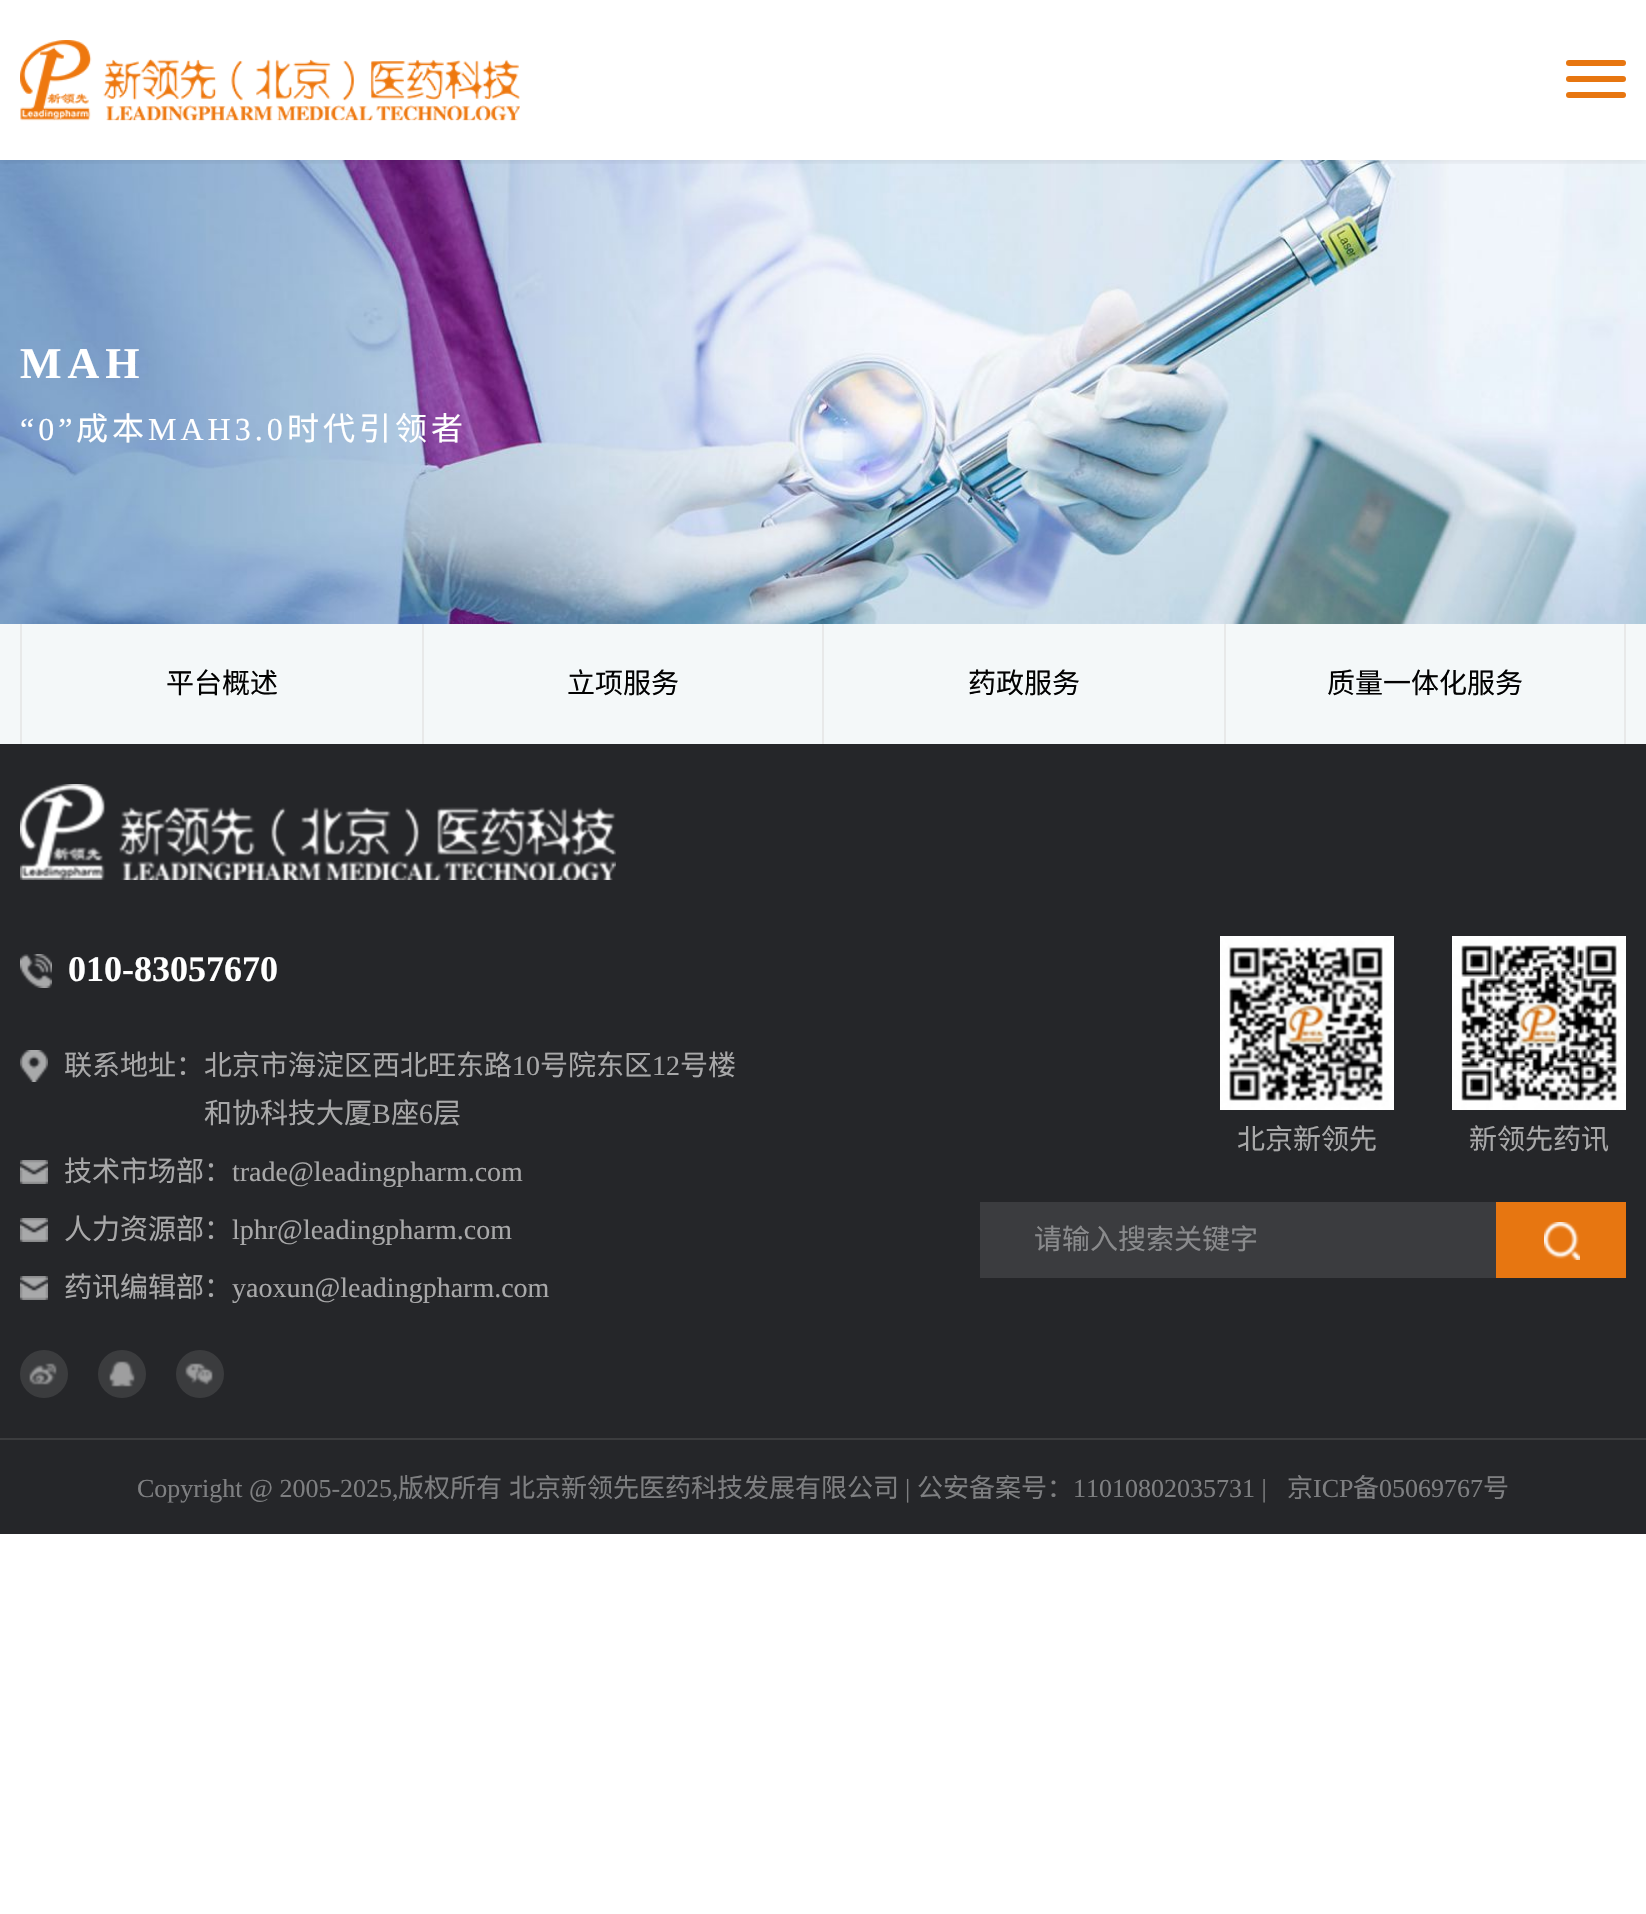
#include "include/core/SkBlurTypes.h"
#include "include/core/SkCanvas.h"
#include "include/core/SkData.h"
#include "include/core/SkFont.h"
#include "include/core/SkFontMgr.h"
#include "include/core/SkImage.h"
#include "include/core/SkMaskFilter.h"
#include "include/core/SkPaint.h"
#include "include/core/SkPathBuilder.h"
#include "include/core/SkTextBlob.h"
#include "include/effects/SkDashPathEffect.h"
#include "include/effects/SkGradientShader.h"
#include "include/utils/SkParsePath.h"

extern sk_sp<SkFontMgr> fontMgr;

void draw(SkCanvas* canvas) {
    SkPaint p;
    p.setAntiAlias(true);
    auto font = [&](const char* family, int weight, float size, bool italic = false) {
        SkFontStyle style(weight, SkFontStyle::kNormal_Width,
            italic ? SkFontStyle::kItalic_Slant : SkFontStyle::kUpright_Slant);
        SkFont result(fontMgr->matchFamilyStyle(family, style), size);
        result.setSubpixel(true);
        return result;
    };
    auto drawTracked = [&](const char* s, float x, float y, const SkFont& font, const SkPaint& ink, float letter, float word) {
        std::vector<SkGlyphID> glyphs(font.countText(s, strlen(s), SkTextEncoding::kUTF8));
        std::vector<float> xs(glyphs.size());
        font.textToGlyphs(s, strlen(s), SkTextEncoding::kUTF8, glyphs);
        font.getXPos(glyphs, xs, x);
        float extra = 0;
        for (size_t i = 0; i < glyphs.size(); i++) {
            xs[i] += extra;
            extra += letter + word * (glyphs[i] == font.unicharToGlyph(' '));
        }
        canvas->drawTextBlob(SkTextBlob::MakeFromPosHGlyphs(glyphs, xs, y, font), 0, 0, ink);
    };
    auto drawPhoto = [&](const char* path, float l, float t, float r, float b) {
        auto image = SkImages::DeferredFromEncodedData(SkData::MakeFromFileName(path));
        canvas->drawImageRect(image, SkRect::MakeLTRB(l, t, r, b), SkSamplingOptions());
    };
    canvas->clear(0xFFFFFFFF);
    drawPhoto("media/2.png", 0, 160, 1646, 624);
    canvas->save();
    canvas->clipRect(SkRect::MakeLTRB(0, 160, 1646, 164));
    p.setColor(0x1A000000);
    p.setMaskFilter(SkMaskFilter::MakeBlur(kNormal_SkBlurStyle, 5));
    canvas->drawRect(SkRect::MakeLTRB(0, 0, 1646, 160), p);
    p.setMaskFilter(nullptr);
    canvas->restore();
    drawPhoto("media/1.png", 20, 40, 520, 121);
    p.setColor(0xFFE77610);
    canvas->drawRoundRect(SkRect::MakeLTRB(1566, 60, 1626, 66), 3, 3, p);
    canvas->drawRoundRect(SkRect::MakeLTRB(1566, 76, 1626, 82), 3, 3, p);
    canvas->drawRoundRect(SkRect::MakeLTRB(1566, 92, 1626, 98), 3, 3, p);
    auto font1 = font("Liberation Serif", 700, 44);
    p.setColor(0xFFFFFFFF);
    drawTracked("MAH", 20, 378, font1, p, 6, 0);
    auto font2 = font("Liberation Serif", 400, 32);
    drawTracked("“0”", 20, 440, font2, p, 4, 0);
    auto font3 = font("Noto Sans CJK SC", 400, 32);
    drawTracked("成本", 76, 440, font3, p, 4, 0);
    drawTracked("MAH3.0", 148, 440, font2, p, 4, 0);
    drawTracked("时代引领者", 287, 440, font3, p, 4, 0);
    {
        const struct { float l, t, r, b; SkColor color; } items[] = {
            {0, 624, 1646, 744, 0xFFF4F8F9},
            {20, 624, 22, 744, 0xFFE8E9E9},
            {422, 624, 424, 744, 0xFFE8E9E9},
        };
        for (auto [l, t, r, b, color] : items) {
            p.setColor(color);
            canvas->drawRect(SkRect::MakeLTRB(l, t, r, b), p);
        }
    }
    auto font4 = font("Noto Sans CJK SC", 400, 28);
    p.setColor(0xFF020202);
    canvas->drawString("平台概述", 166, 693, font4, p);
    p.setColor(0xFFE8E9E9);
    canvas->drawRect(SkRect::MakeLTRB(822, 624, 824, 744), p);
    p.setColor(0xFF020202);
    canvas->drawString("立项服务", 567, 693, font4, p);
    p.setColor(0xFFE8E9E9);
    canvas->drawRect(SkRect::MakeLTRB(1224, 624, 1226, 744), p);
    p.setColor(0xFF020202);
    canvas->drawString("药政服务", 968, 693, font4, p);
    p.setColor(0xFFE8E9E9);
    canvas->drawRect(SkRect::MakeLTRB(1624, 624, 1626, 744), p);
    p.setColor(0xFF020202);
    canvas->drawString("质量一体化服务", 1327, 693, font4, p);
    p.setColor(0xFF252629);
    canvas->drawRect(SkRect::MakeLTRB(0, 744, 1646, 1534), p);
    p.setColor(0xFF3B3C3E);
    canvas->drawRect(SkRect::MakeLTRB(0, 1438, 1646, 1440), p);
    drawPhoto("media/3.png", 20, 784, 616, 880);
    drawPhoto("media/4.png", 20, 954, 52, 988);
    auto font5 = font("Liberation Serif", 700, 36);
    p.setColor(0xFFFFFFFF);
    canvas->drawString("010-83057670", 68, 981, font5, p);
    drawPhoto("media/5.png", 20, 1050, 48, 1082);
    p.setColor(0xFFA8A8A9);
    canvas->drawString("联系地址：北京市海淀区西北旺东路", 64, 1075, font4, p);
    auto font6 = font("Liberation Serif", 400, 28);
    canvas->drawString("10", 512, 1075, font6, p);
    canvas->drawString("号院东区", 540, 1075, font4, p);
    canvas->drawString("12", 652, 1075, font6, p);
    canvas->drawString("号楼", 680, 1075, font4, p);
    canvas->drawString("和协科技大厦", 204, 1123, font4, p);
    canvas->drawString("B", 372, 1123, font6, p);
    canvas->drawString("座", 391, 1123, font4, p);
    canvas->drawString("6", 419, 1123, font6, p);
    canvas->drawString("层", 433, 1123, font4, p);
    drawPhoto("media/6.png", 20, 1160, 48, 1184);
    canvas->drawString("技术市场部：", 64, 1181, font4, p);
    canvas->drawString("trade@leadingpharm.com", 232, 1181, font6, p);
    drawPhoto("media/6.png", 20, 1218, 48, 1242);
    canvas->drawString("人力资源部：", 64, 1239, font4, p);
    canvas->drawString("lphr@leadingpharm.com", 232, 1239, font6, p);
    drawPhoto("media/6.png", 20, 1276, 48, 1300);
    canvas->drawString("药讯编辑部：", 64, 1297, font4, p);
    canvas->drawString("yaoxun@leadingpharm.com", 232, 1297, font6, p);
    p.setColor(0xFF3B3C3E);
    canvas->drawCircle(44, 1374, 24, p);
    drawPhoto("media/7.png", 29, 1363, 57, 1385);
    canvas->drawCircle(122, 1374, 24, p);
    drawPhoto("media/8.png", 109, 1361, 135, 1387);
    canvas->drawCircle(200, 1374, 24, p);
    drawPhoto("media/9.png", 185, 1363, 213, 1385);
    drawPhoto("media/10.png", 1220, 936, 1394, 1110);
    p.setColor(0xFFA8A8A9);
    canvas->drawString("北京新领先", 1237, 1149, font4, p);
    drawPhoto("media/11.png", 1452, 936, 1626, 1110);
    canvas->drawString("新领先药讯", 1469, 1149, font4, p);
    p.setColor(0xFF3B3C3F);
    canvas->drawRect(SkRect::MakeLTRB(980, 1202, 1496, 1278), p);
    p.setColor(0xFF898A8C);
    canvas->drawString("请输入搜索关键字", 1034, 1249, font4, p);
    p.setColor(0xFFE77611);
    canvas->drawRect(SkRect::MakeLTRB(1496, 1202, 1626, 1278), p);
    drawPhoto("media/12.png", 1544, 1222, 1580, 1260);
    auto font7 = font("Liberation Serif", 400, 26);
    p.setColor(0xFF7E7F81);
    canvas->drawString("Copyright @ 2005-2025,", 137, 1497, font7, p);
    auto font8 = font("Noto Sans CJK SC", 400, 26);
    canvas->drawString("版权所有", 398, 1497, font8, p);
    canvas->drawString("北京新领先医药科技发展有限公司", 509, 1497, font8, p);
    canvas->drawString("|", 905, 1497, font7, p);
    canvas->drawString("公安备案号：", 917, 1497, font8, p);
    canvas->drawString("11010802035731 |", 1073, 1497, font7, p);
    canvas->drawString("京", 1287, 1497, font8, p);
    canvas->drawString("ICP", 1313, 1497, font7, p);
    canvas->drawString("备", 1353, 1497, font8, p);
    canvas->drawString("05069767", 1379, 1497, font7, p);
    canvas->drawString("号", 1483, 1497, font8, p);
}
